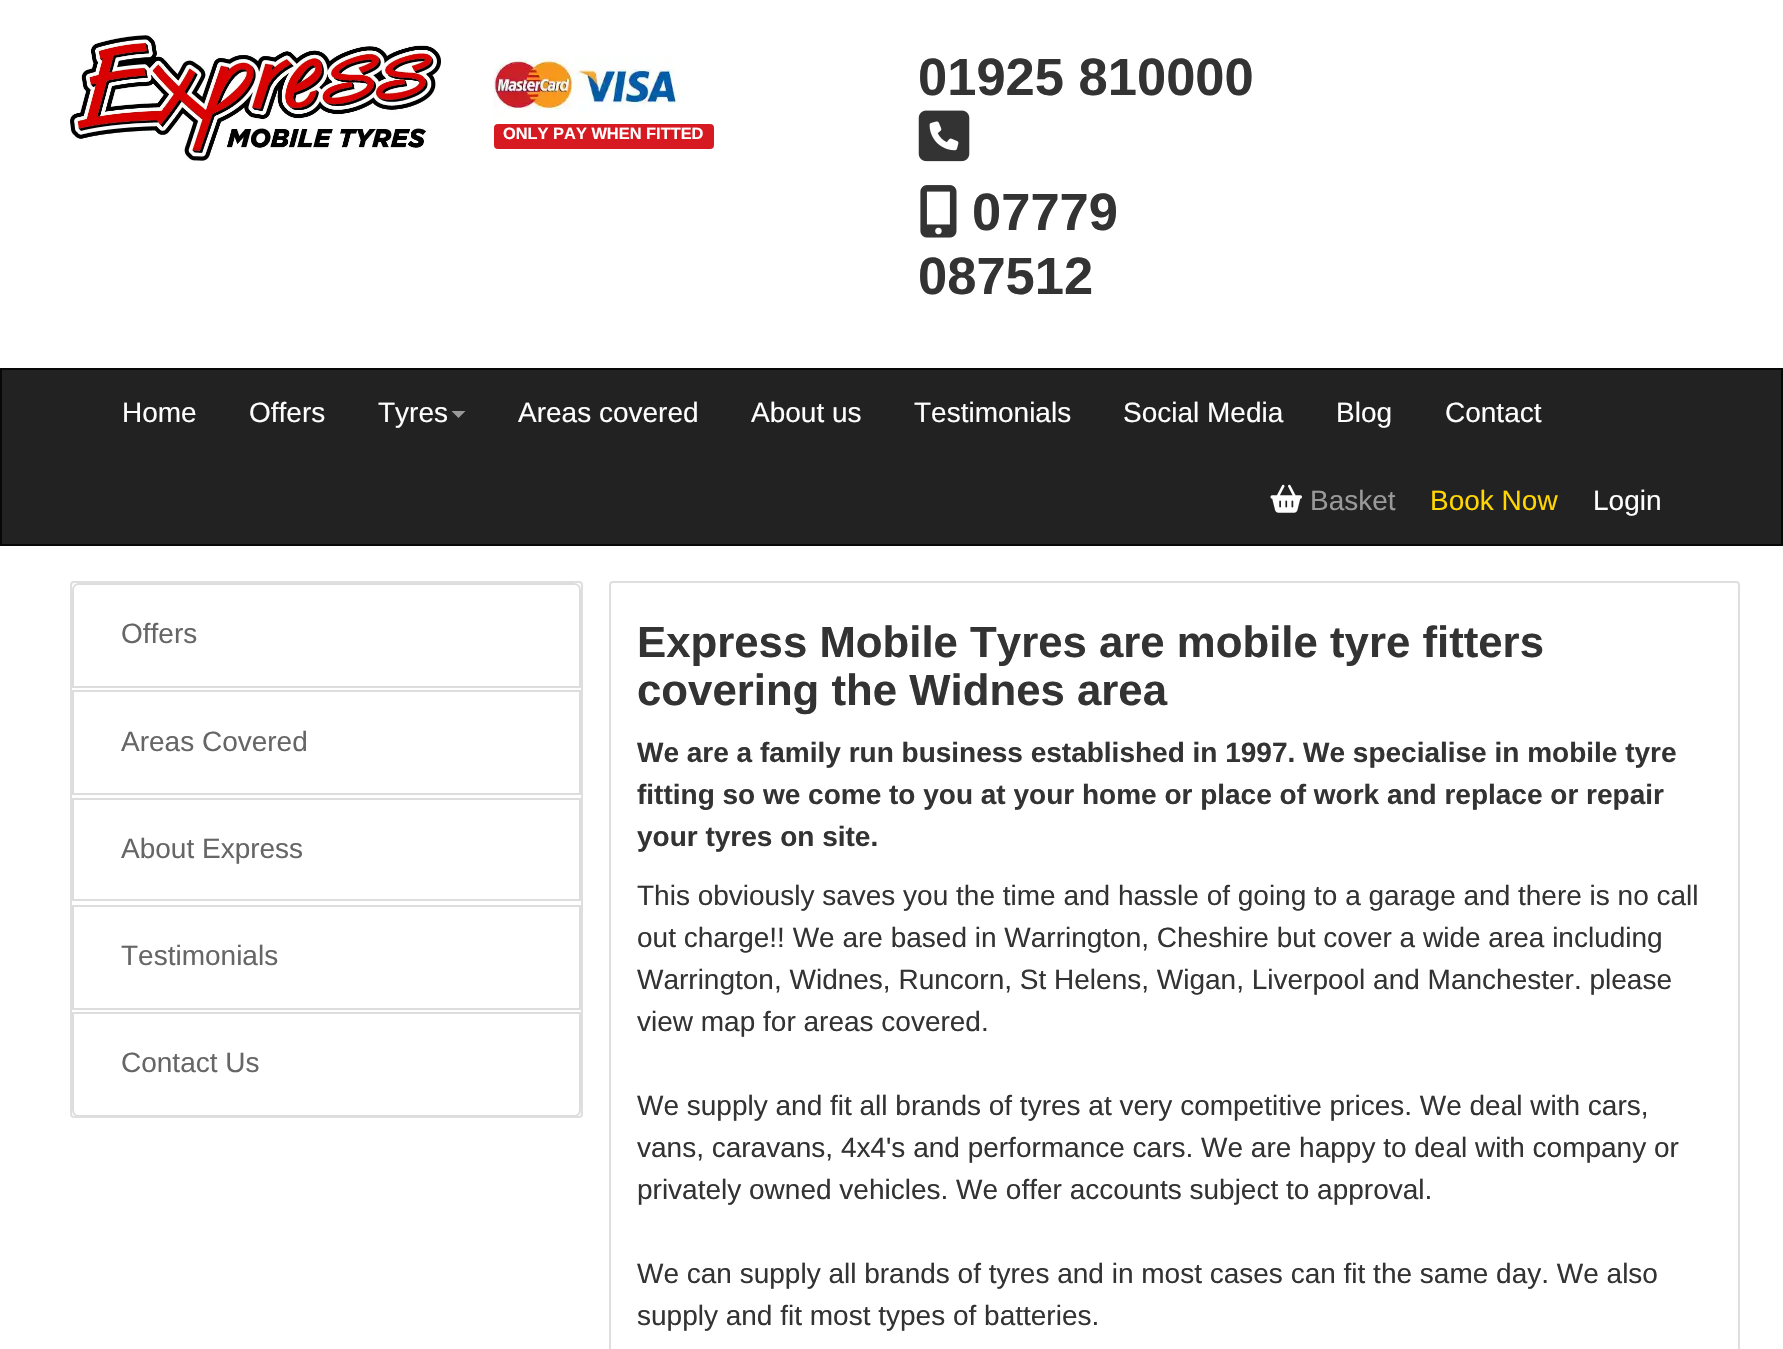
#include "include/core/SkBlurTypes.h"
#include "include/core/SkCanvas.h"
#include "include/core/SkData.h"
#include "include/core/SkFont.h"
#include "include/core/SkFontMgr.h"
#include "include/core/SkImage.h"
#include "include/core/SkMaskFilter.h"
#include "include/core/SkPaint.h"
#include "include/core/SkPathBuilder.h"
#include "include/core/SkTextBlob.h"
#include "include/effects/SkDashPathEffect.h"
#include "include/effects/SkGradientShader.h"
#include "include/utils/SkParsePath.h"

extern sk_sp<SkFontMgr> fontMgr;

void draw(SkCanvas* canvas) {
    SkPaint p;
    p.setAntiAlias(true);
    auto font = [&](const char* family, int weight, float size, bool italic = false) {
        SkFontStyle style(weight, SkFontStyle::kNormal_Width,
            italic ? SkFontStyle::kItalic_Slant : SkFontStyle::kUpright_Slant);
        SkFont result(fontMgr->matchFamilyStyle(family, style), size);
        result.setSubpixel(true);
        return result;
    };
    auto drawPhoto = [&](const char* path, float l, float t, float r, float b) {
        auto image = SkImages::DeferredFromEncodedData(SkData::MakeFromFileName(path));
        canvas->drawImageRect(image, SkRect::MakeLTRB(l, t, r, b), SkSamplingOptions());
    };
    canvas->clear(0xFFFFFFFF);
    drawPhoto("media/1.png", 70, 35, 441, 161);
    drawPhoto("media/2.png", 493, 57, 681, 118);
    p.setColor(0xFFD71921);
    canvas->drawRoundRect(SkRect::MakeLTRB(494, 124, 714, 149), 4, 4, p);
    auto font1 = font("Liberation Sans", 700, 16.4f);
    p.setColor(0xFFFFFFFF);
    canvas->drawString("ONLY PAY WHEN FITTED", 503, 139, font1, p);
    auto font2 = font("Liberation Sans", 700, 52.5f);
    p.setColor(0xFF333333);
    canvas->drawString("01925 810000", 918, 95, font2, p);
    drawPhoto("media/3.png", 918, 110, 970, 162);
    drawPhoto("media/4.png", 920, 185, 957, 238);
    canvas->drawString("07779", 972, 230, font2, p);
    canvas->drawString("087512", 918, 294, font2, p);
    p.setColor(0xFF222222);
    canvas->drawRect(SkRect::MakeLTRB(1, 369, 1782, 545), p);
    p.setStyle(SkPaint::kStroke_Style);
    p.setStrokeWidth(2);
    p.setColor(0xFF080808);
    canvas->drawRect(SkRect::MakeLTRB(1, 369, 1782, 545), p);
    auto font3 = font("Liberation Sans", 400, 28);
    p.setStyle(SkPaint::kFill_Style);
    p.setColor(0xFFFFFFFF);
    {
        const struct { const char* s; float x, y; } items[] = {
            {"Home", 122, 422},
            {"Offers", 249, 422},
            {"Tyres", 378, 422},
        };
        for (auto [s, x, y] : items) {
            canvas->drawString(s, x, y, font3, p);
        }
    }
    p.setColor(0xFF999999);
    canvas->drawPath(SkPathBuilder().moveTo(451.5f, 411).lineTo(465.5f, 411).lineTo(458.5f, 418).close().detach(), p);
    p.setColor(0xFFFFFFFF);
    {
        const struct { const char* s; float x, y; } items[] = {
            {"Areas covered", 518, 422},
            {"About us", 751, 422},
            {"Testimonials", 914, 422},
            {"Social Media", 1123, 422},
            {"Blog", 1336, 422},
            {"Contact", 1445, 422},
        };
        for (auto [s, x, y] : items) {
            canvas->drawString(s, x, y, font3, p);
        }
    }
    drawPhoto("media/5.png", 1270, 484, 1302, 513);
    p.setColor(0xFF999999);
    canvas->drawString("Basket", 1310, 510, font3, p);
    p.setColor(0xFFFFD503);
    canvas->drawString("Book Now", 1430, 510, font3, p);
    p.setColor(0xFFFFFFFF);
    canvas->drawString("Login", 1593, 510, font3, p);
    p.setStyle(SkPaint::kStroke_Style);
    p.setColor(0xFFDFDFDF);
    canvas->drawRoundRect(SkRect::MakeLTRB(71, 582, 582, 1117), 3, 3, p);
    p.setColor(0xFFDDDDDD);
    canvas->drawPath(SkPathBuilder().moveTo(79, 584).lineTo(574, 584).cubicTo(577.5f, 584, 580, 586.5f, 580, 590).lineTo(580, 687).lineTo(73, 687).lineTo(73, 590).cubicTo(73, 586.5f, 75.5f, 584, 79, 584).close().detach(), p);
    p.setStyle(SkPaint::kFill_Style);
    p.setColor(0xFF666666);
    canvas->drawString("Offers", 121, 643, font3, p);
    p.setStyle(SkPaint::kStroke_Style);
    p.setColor(0xFFDDDDDD);
    canvas->drawRect(SkRect::MakeLTRB(73, 691, 580, 794), p);
    p.setStyle(SkPaint::kFill_Style);
    p.setColor(0xFF666666);
    canvas->drawString("Areas Covered", 121, 751, font3, p);
    p.setStyle(SkPaint::kStroke_Style);
    p.setColor(0xFFDDDDDD);
    canvas->drawRect(SkRect::MakeLTRB(73, 799, 580, 900), p);
    p.setStyle(SkPaint::kFill_Style);
    p.setColor(0xFF666666);
    canvas->drawString("About Express", 121, 858, font3, p);
    p.setStyle(SkPaint::kStroke_Style);
    p.setColor(0xFFDDDDDD);
    canvas->drawRect(SkRect::MakeLTRB(73, 906, 580, 1009), p);
    p.setStyle(SkPaint::kFill_Style);
    p.setColor(0xFF666666);
    canvas->drawString("Testimonials", 121, 965, font3, p);
    p.setColor(0xFFFFFFFF);
    canvas->drawPath(SkPathBuilder().moveTo(73, 1013).lineTo(580, 1013).lineTo(580, 1110).cubicTo(580, 1113.5f, 577.5f, 1116, 574, 1116).lineTo(79, 1116).cubicTo(75.5f, 1116, 73, 1113.5f, 73, 1110).close().detach(), p);
    p.setStyle(SkPaint::kStroke_Style);
    p.setColor(0xFFDDDDDD);
    canvas->drawPath(SkPathBuilder().moveTo(73, 1013).lineTo(580, 1013).lineTo(580, 1110).cubicTo(580, 1113.5f, 577.5f, 1116, 574, 1116).lineTo(79, 1116).cubicTo(75.5f, 1116, 73, 1113.5f, 73, 1110).close().detach(), p);
    p.setStyle(SkPaint::kFill_Style);
    p.setColor(0xFF666666);
    canvas->drawString("Contact Us", 121, 1072, font3, p);
    p.setStyle(SkPaint::kStroke_Style);
    p.setColor(0xFFDFDFDF);
    canvas->drawRoundRect(SkRect::MakeLTRB(610, 582, 1739, 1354), 3, 3, p);
    auto font4 = font("Liberation Sans", 700, 43.75f);
    p.setStyle(SkPaint::kFill_Style);
    p.setColor(0xFF333333);
    canvas->drawString("Express Mobile Tyres are mobile tyre fitters", 637, 657, font4, p);
    canvas->drawString("covering the Widnes area", 637, 705, font4, p);
    auto font5 = font("Liberation Sans", 700, 28);
    {
        const struct { const char* s; float x, y; } items[] = {
            {"We are a family run business established in 1997. We specialise in mobile tyre", 637, 762},
            {"fitting so we come to you at your home or place of work and replace or repair", 637, 804},
            {"your tyres on site.", 637, 846},
        };
        for (auto [s, x, y] : items) {
            canvas->drawString(s, x, y, font5, p);
        }
    }
    {
        const struct { const char* s; float x, y; } items[] = {
            {"This obviously saves you the time and hassle of going to a garage and there is no call", 637, 905},
            {"out charge!! We are based in Warrington, Cheshire but cover a wide area including", 637, 947},
            {"Warrington, Widnes, Runcorn, St Helens, Wigan, Liverpool and Manchester. please", 637, 989},
            {"view map for areas covered.", 637, 1031},
            {"We supply and fit all brands of tyres at very competitive prices. We deal with cars,", 637, 1115},
            {"vans, caravans, 4x4's and performance cars. We are happy to deal with company or", 637, 1157},
            {"privately owned vehicles. We offer accounts subject to approval.", 637, 1199},
            {"We can supply all brands of tyres and in most cases can fit the same day. We also", 637, 1283},
            {"supply and fit most types of batteries.", 637, 1325},
        };
        for (auto [s, x, y] : items) {
            canvas->drawString(s, x, y, font3, p);
        }
    }
}
